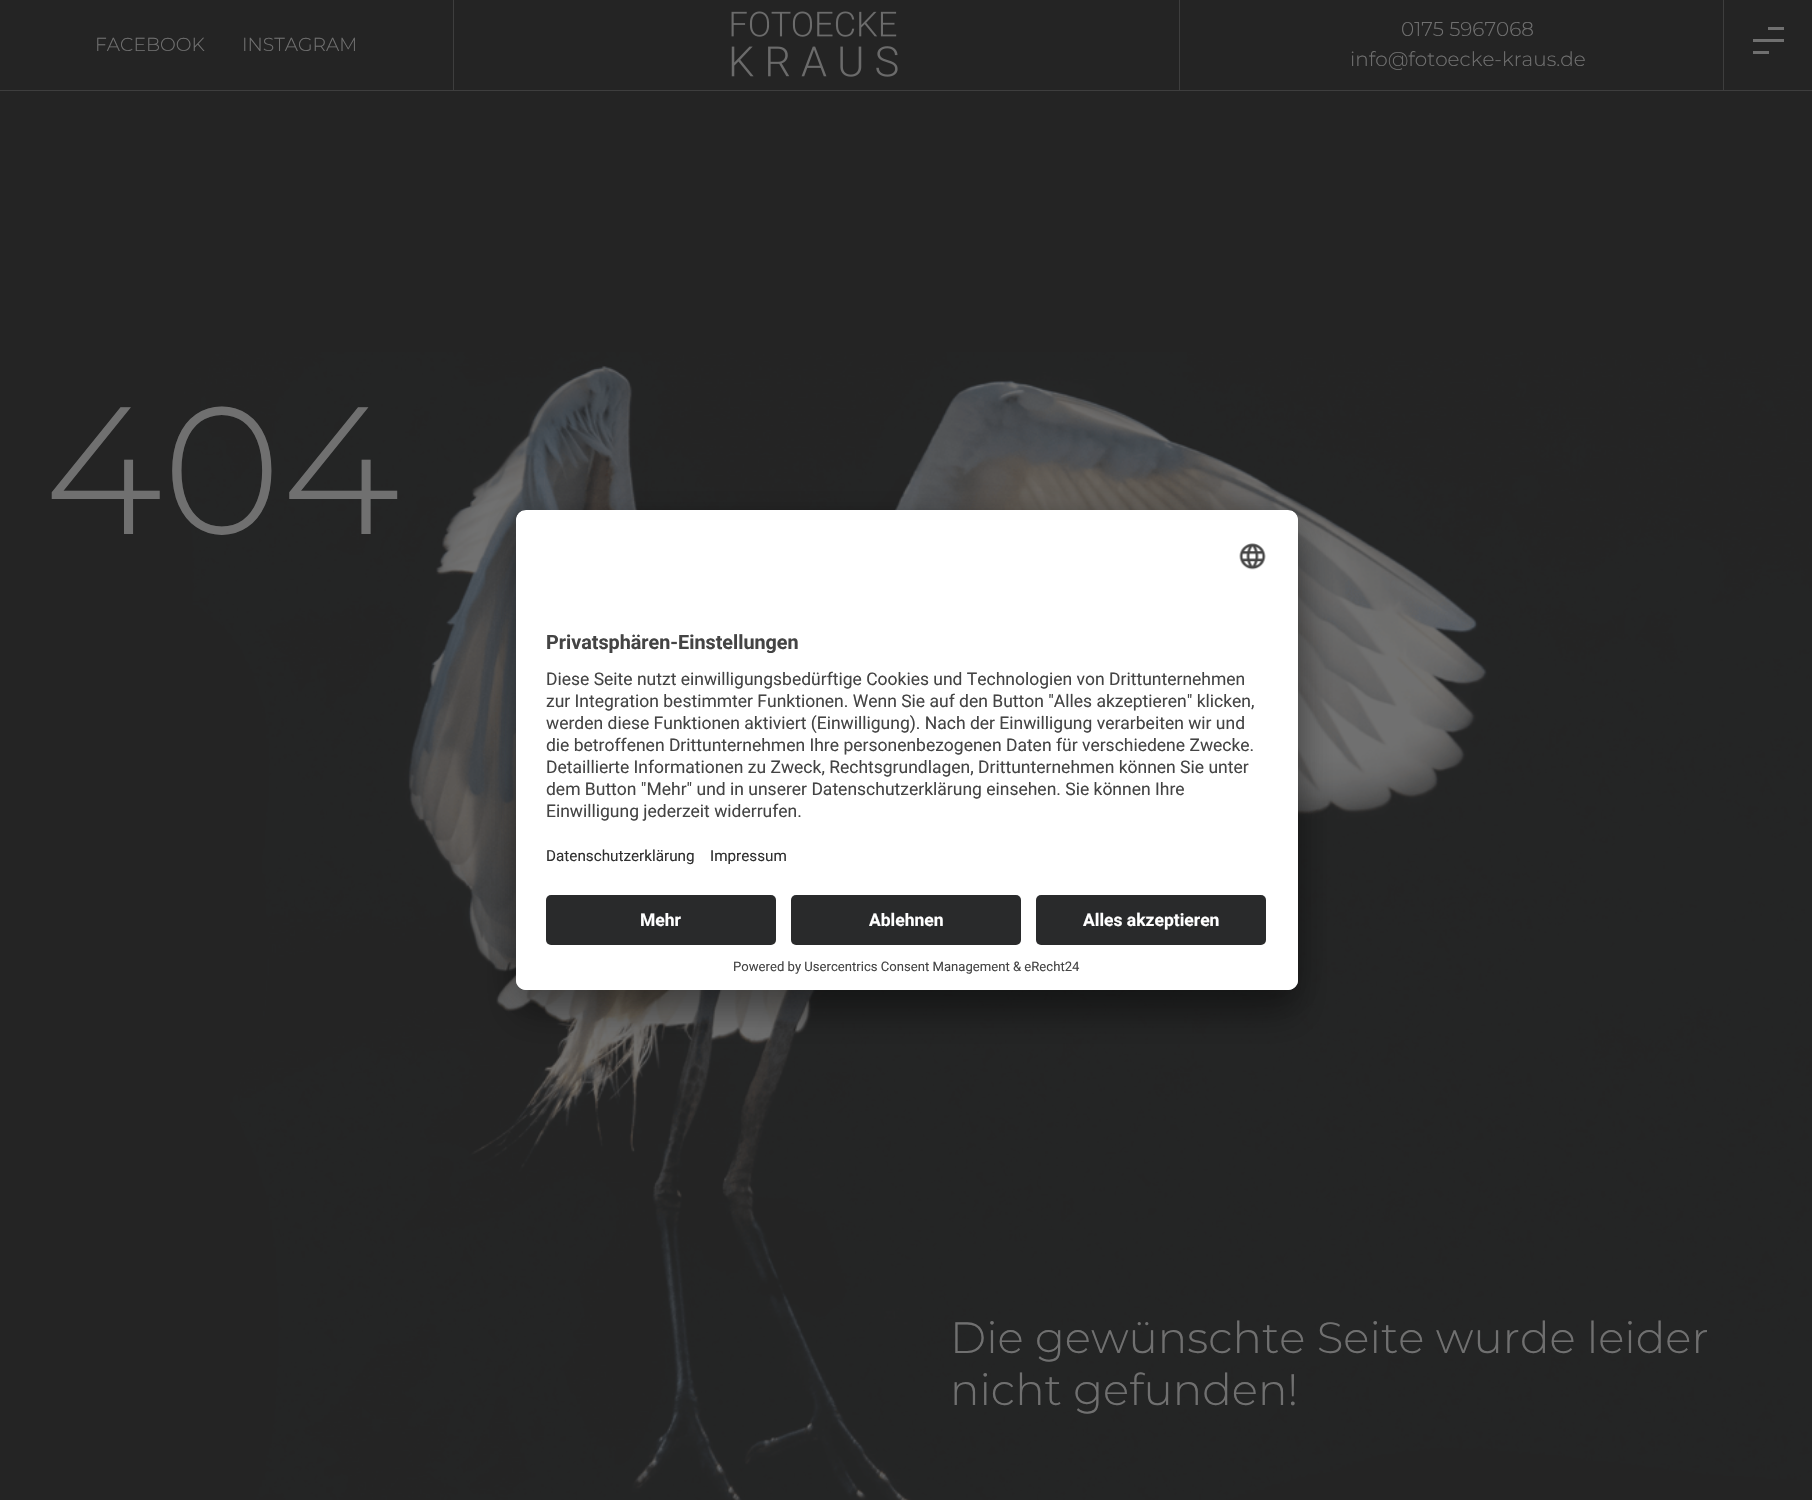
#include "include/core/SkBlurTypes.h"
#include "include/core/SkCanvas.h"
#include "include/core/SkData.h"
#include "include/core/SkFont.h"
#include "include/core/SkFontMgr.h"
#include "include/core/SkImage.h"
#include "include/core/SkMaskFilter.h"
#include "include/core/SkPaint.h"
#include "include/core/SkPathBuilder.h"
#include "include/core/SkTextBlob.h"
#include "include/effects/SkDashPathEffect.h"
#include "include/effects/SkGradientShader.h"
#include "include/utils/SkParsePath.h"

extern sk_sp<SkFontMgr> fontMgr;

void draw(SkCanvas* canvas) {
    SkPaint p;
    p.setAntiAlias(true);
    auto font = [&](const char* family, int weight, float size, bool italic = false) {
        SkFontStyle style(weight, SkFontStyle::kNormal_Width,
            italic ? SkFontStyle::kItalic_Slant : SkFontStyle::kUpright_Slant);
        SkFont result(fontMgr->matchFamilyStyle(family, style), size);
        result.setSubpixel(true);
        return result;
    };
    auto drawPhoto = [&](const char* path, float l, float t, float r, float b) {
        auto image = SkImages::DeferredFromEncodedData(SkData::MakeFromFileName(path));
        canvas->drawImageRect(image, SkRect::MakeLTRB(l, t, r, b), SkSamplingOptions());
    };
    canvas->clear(0xFF242424);
    p.setColor(0xFF3E3E3E);
    canvas->drawRect(SkRect::MakeLTRB(0, 90, 1812, 91), p);
    canvas->drawRect(SkRect::MakeLTRB(453, 0, 454, 90), p);
    auto font1 = font("Montserrat", 100, 18.75f);
    p.setColor(0xFF707070);
    canvas->drawString("FACEBOOK", 95, 51, font1, p);
    canvas->drawString("INSTAGRAM", 242, 51, font1, p);
    drawPhoto("media/1.png", 731, 11, 898, 77);
    p.setColor(0xFF3E3E3E);
    canvas->drawRect(SkRect::MakeLTRB(1179, 0, 1180, 90), p);
    auto font2 = font("Montserrat", 100, 20);
    p.setColor(0xFF707070);
    canvas->drawString("0175 5967068", 1401, 36, font2, p);
    canvas->drawString("info@fotoecke-kraus.de", 1350, 66, font2, p);
    {
        const struct { float l, t, r, b; SkColor color; } items[] = {
            {1723, 0, 1724, 90, 0xFF3E3E3E},
            {1753, 51, 1769, 54, 0xFF707070},
            {1768, 27, 1784, 30, 0xFF707070},
            {1753, 39, 1784, 42, 0xFF707070},
        };
        for (auto [l, t, r, b, color] : items) {
            p.setColor(color);
            canvas->drawRect(SkRect::MakeLTRB(l, t, r, b), p);
        }
    }
    drawPhoto("media/2.png", 14, 352, 1812, 1500);
    auto font3 = font("Montserrat", 100, 181);
    canvas->drawString("404", 44, 534, font3, p);
    auto font4 = font("Montserrat", 100, 43.75f);
    canvas->drawString("Die gewünschte Seite wurde leider", 950, 1353, font4, p);
    canvas->drawString("nicht gefunden!", 950, 1405, font4, p);
    p.setColor(0x4D000000);
    p.setMaskFilter(SkMaskFilter::MakeBlur(kNormal_SkBlurStyle, 17.5f));
    canvas->drawRoundRect(SkRect::MakeLTRB(516, 535, 1298, 1015), 10, 10, p);
    p.setMaskFilter(nullptr);
    p.setColor(0x38000000);
    p.setMaskFilter(SkMaskFilter::MakeBlur(kNormal_SkBlurStyle, 16));
    canvas->drawRoundRect(SkRect::MakeLTRB(516, 516, 1298, 996), 10, 10, p);
    p.setMaskFilter(nullptr);
    p.setColor(0xFFFFFFFF);
    canvas->drawRoundRect(SkRect::MakeLTRB(516, 510, 1298, 990), 10, 10, p);
    canvas->save();
    canvas->clipPath(SkPathBuilder().moveTo(526, 510).lineTo(1288, 510).cubicTo(1293.5f, 510, 1298, 514.5f, 1298, 520).lineTo(1298, 980).cubicTo(1298, 985.5f, 1293.5f, 990, 1288, 990).lineTo(526, 990).cubicTo(520.5f, 990, 516, 985.5f, 516, 980).lineTo(516, 520).cubicTo(516, 514.5f, 520.5f, 510, 526, 510).close().detach(), true);
    canvas->clipPath(SkPathBuilder().moveTo(526, 510).lineTo(1288, 510).cubicTo(1293.5f, 510, 1298, 514.5f, 1298, 520).lineTo(1298, 885).lineTo(516, 885).lineTo(516, 520).cubicTo(516, 514.5f, 520.5f, 510, 526, 510).close().detach(), true);
    canvas->drawRect(SkRect::MakeLTRB(516, 511, 1298, 885), p);
    canvas->restore();
    drawPhoto("media/3.png", 1239, 543, 1266, 570);
    auto font5 = font("Roboto", 700, 19.75f);
    p.setColor(0xFF444444);
    canvas->drawString("Privatsphären-Einstellungen", 546, 649, font5, p);
    auto font6 = font("Roboto", 400, 17.5f);
    {
        const struct { const char* s; float x, y; } items[] = {
            {"Diese Seite nutzt einwilligungsbedürftige Cookies und Technologien von Drittunternehmen", 546, 685},
            {"zur Integration bestimmter Funktionen. Wenn Sie auf den Button \"Alles akzeptieren\" klicken,", 546, 707},
            {"werden diese Funktionen aktiviert (Einwilligung). Nach der Einwilligung verarbeiten wir und", 546, 729},
            {"die betroffenen Drittunternehmen Ihre personenbezogenen Daten für verschiedene Zwecke.", 546, 751},
            {"Detaillierte Informationen zu Zweck, Rechtsgrundlagen, Drittunternehmen können Sie unter", 546, 773},
            {"dem Button \"Mehr\" und in unserer Datenschutzerklärung einsehen. Sie können Ihre", 546, 795},
            {"Einwilligung jederzeit widerrufen.", 546, 817},
        };
        for (auto [s, x, y] : items) {
            canvas->drawString(s, x, y, font6, p);
        }
    }
    auto font7 = font("Roboto", 400, 15.25f);
    p.setColor(0xFF303030);
    canvas->drawString("Datenschutzerklärung", 546, 861, font7, p);
    canvas->drawString("Impressum", 710, 861, font7, p);
    p.setColor(0xFFFFFFFF);
    canvas->drawPath(SkPathBuilder().moveTo(516, 885).lineTo(1298, 885).lineTo(1298, 980).cubicTo(1298, 985.5f, 1293.5f, 990, 1288, 990).lineTo(526, 990).cubicTo(520.5f, 990, 516, 985.5f, 516, 980).close().detach(), p);
    p.setColor(0xFF292A2B);
    canvas->drawRoundRect(SkRect::MakeLTRB(546, 895, 776, 945), 5, 5, p);
    auto font8 = font("Roboto", 700, 17.5f);
    p.setColor(0xFFFFFFFF);
    canvas->drawString("Mehr", 640, 926, font8, p);
    p.setColor(0xFF292A2B);
    canvas->drawRoundRect(SkRect::MakeLTRB(791, 895, 1021, 945), 5, 5, p);
    p.setColor(0xFFFFFFFF);
    canvas->drawString("Ablehnen", 869, 926, font8, p);
    p.setColor(0xFF292A2B);
    canvas->drawRoundRect(SkRect::MakeLTRB(1036, 895, 1266, 945), 5, 5, p);
    p.setColor(0xFFFFFFFF);
    canvas->drawString("Alles akzeptieren", 1083, 926, font8, p);
    auto font9 = font("Roboto", 400, 13.1f);
    p.setColor(0xFF444444);
    canvas->drawString("Powered by Usercentrics Consent Management & eRecht24", 733, 971, font9, p);
}
